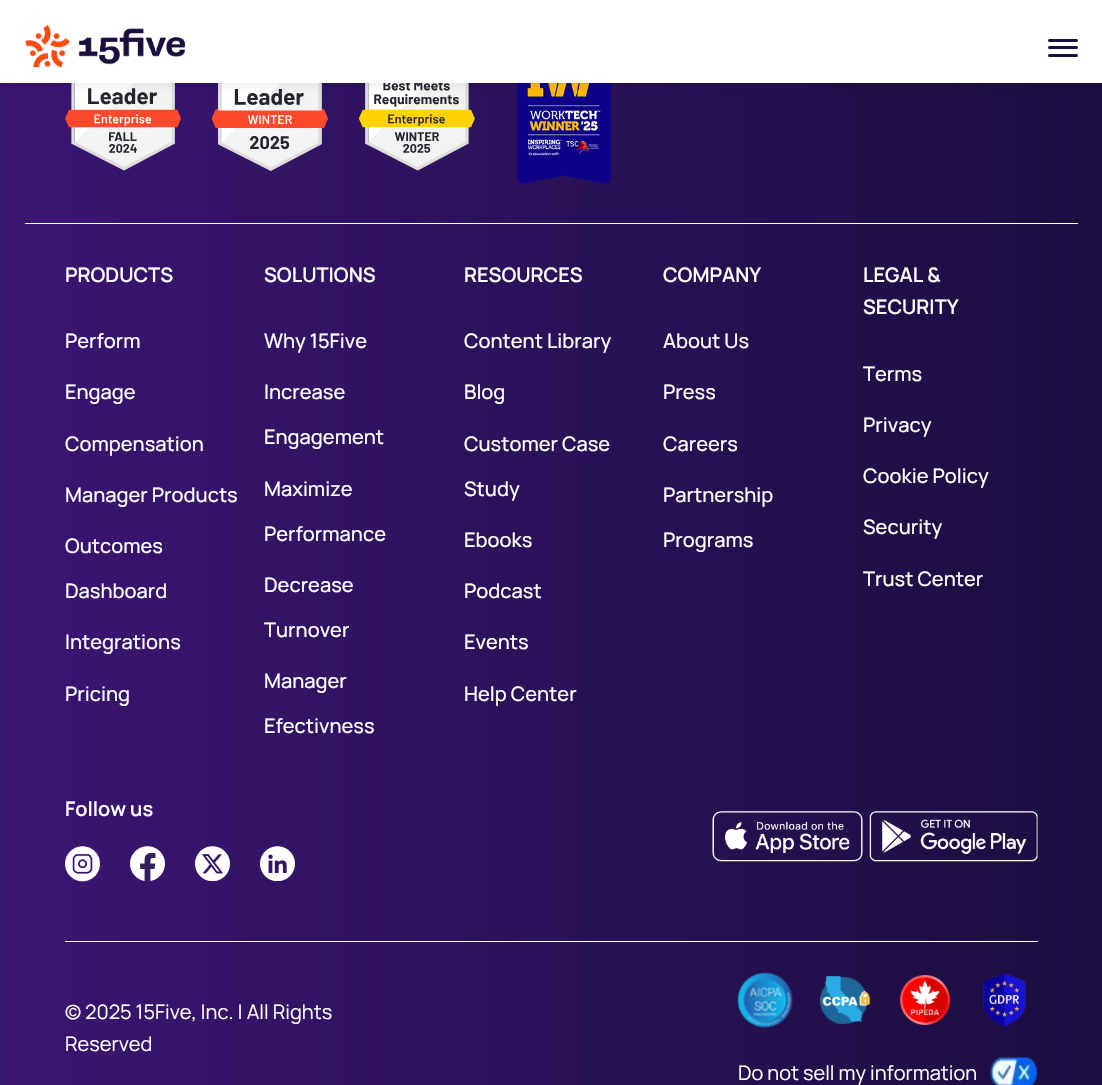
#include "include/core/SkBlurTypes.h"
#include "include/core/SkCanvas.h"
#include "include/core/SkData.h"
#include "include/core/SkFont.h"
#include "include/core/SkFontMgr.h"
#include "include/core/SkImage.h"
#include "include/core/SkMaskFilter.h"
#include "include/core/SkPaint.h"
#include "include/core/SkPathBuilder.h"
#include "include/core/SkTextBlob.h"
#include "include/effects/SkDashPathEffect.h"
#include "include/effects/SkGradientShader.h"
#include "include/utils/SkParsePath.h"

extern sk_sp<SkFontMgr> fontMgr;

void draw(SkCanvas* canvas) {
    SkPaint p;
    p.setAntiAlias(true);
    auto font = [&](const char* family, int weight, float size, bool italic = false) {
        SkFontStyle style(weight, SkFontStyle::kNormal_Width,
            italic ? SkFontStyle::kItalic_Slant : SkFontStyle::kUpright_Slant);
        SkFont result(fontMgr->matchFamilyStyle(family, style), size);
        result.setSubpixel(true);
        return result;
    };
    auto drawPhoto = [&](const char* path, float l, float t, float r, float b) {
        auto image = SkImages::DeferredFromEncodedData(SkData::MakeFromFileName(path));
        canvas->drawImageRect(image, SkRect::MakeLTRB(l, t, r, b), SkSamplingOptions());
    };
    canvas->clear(0xFFFFFFFF);
    {
        const SkColor colors[] = {0xFF3B1572, 0xFF1A0D3F};
        const float stops[] = {0, 1};
        const SkPoint ends[] = {{0, 493}, {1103, 493}};
        p.setShader(SkGradientShader::MakeLinear(ends, colors, stops, 2, SkTileMode::kClamp));
        p.setAlpha(255);
    }
    canvas->drawRect(SkRect::MakeLTRB(0, 83, 1102, 1085), p);
    drawPhoto("media/2.png", 65, 83, 181, 171);
    drawPhoto("media/3.png", 211, 83, 328, 171);
    drawPhoto("media/4.png", 359, 83, 475, 171);
    drawPhoto("media/5.png", 517, 83, 611, 184);
    p.setShader(nullptr);
    p.setColor(0x14000000);
    p.setMaskFilter(SkMaskFilter::MakeBlur(kNormal_SkBlurStyle, 4.5f));
    canvas->drawRect(SkRect::MakeLTRB(0, 3, 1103, 85), p);
    p.setMaskFilter(nullptr);
    p.setColor(0xFFFFFFFF);
    canvas->drawRect(SkRect::MakeLTRB(0, 0, 1102, 83), p);
    drawPhoto("media/1.png", 25, 25, 185, 68);
    p.setColor(0xFF1A0D3F);
    canvas->drawRoundRect(SkRect::MakeLTRB(1048, 46, 1078, 49), 1.5f, 1.5f, p);
    canvas->drawRoundRect(SkRect::MakeLTRB(1048, 39, 1078, 42), 1.5f, 1.5f, p);
    canvas->drawRoundRect(SkRect::MakeLTRB(1048, 54, 1078, 57), 1.5f, 1.5f, p);
    p.setColor(0xFFFFFFFF);
    canvas->drawRect(SkRect::MakeLTRB(25, 223, 1078, 224), p);
    auto font1 = font("Manrope", 600, 20);
    canvas->drawString("PRODUCTS", 65, 282, font1, p);
    auto font2 = font("Manrope", 500, 20);
    {
        const struct { const char* s; float x, y; } items[] = {
            {"Perform", 65, 348},
            {"Engage", 65, 399},
            {"Compensation", 65, 451},
            {"Manager Products", 65, 502},
            {"Outcomes", 65, 553},
            {"Dashboard", 65, 598},
            {"Integrations", 65, 649},
            {"Pricing", 65, 701},
        };
        for (auto [s, x, y] : items) {
            canvas->drawString(s, x, y, font2, p);
        }
    }
    canvas->drawString("SOLUTIONS", 264, 282, font1, p);
    {
        const struct { const char* s; float x, y; } items[] = {
            {"Why 15Five", 264, 348},
            {"Increase", 264, 399},
            {"Engagement", 264, 444},
            {"Maximize", 264, 496},
            {"Performance", 264, 541},
            {"Decrease", 264, 592},
            {"Turnover", 264, 637},
            {"Manager", 264, 688},
            {"Efectivness", 264, 733},
        };
        for (auto [s, x, y] : items) {
            canvas->drawString(s, x, y, font2, p);
        }
    }
    canvas->drawString("RESOURCES", 464, 282, font1, p);
    {
        const struct { const char* s; float x, y; } items[] = {
            {"Content Library", 464, 348},
            {"Blog", 464, 399},
            {"Customer Case", 464, 451},
            {"Study", 464, 496},
            {"Ebooks", 464, 547},
            {"Podcast", 464, 598},
            {"Events", 464, 649},
            {"Help Center", 464, 701},
        };
        for (auto [s, x, y] : items) {
            canvas->drawString(s, x, y, font2, p);
        }
    }
    canvas->drawString("COMPANY", 663, 282, font1, p);
    {
        const struct { const char* s; float x, y; } items[] = {
            {"About Us", 663, 348},
            {"Press", 663, 399},
            {"Careers", 663, 451},
            {"Partnership", 663, 502},
            {"Programs", 663, 547},
        };
        for (auto [s, x, y] : items) {
            canvas->drawString(s, x, y, font2, p);
        }
    }
    canvas->drawString("LEGAL &", 863, 282, font1, p);
    canvas->drawString("SECURITY", 863, 314, font1, p);
    {
        const struct { const char* s; float x, y; } items[] = {
            {"Terms", 863, 381},
            {"Privacy", 863, 432},
            {"Cookie Policy", 863, 483},
            {"Security", 863, 534},
            {"Trust Center", 863, 586},
        };
        for (auto [s, x, y] : items) {
            canvas->drawString(s, x, y, font2, p);
        }
    }
    canvas->drawString("Follow us", 65, 816, font1, p);
    drawPhoto("media/6.png", 65, 846, 100, 882);
    drawPhoto("media/7.png", 130, 846, 165, 881);
    drawPhoto("media/8.png", 195, 846, 230, 881);
    drawPhoto("media/9.png", 260, 846, 295, 881);
    drawPhoto("media/10.png", 712, 811, 863, 862);
    drawPhoto("media/11.png", 869, 811, 1038, 862);
    canvas->drawRect(SkRect::MakeLTRB(65, 941, 1038, 942), p);
    auto font3 = font("Manrope", 400, 20);
    canvas->drawString("© 2025 15Five, Inc. | All Rights", 65, 1019, font3, p);
    canvas->drawString("Reserved", 65, 1051, font3, p);
    drawPhoto("media/12.png", 737, 972, 793, 1028);
    drawPhoto("media/13.png", 820, 976, 870, 1024);
    drawPhoto("media/14.png", 900, 975, 950, 1025);
    drawPhoto("media/15.png", 983, 972, 1026, 1027);
    canvas->drawString("Do not sell my information", 738, 1080, font3, p);
    drawPhoto("media/16.png", 990, 1057, 1038, 1085);
}
